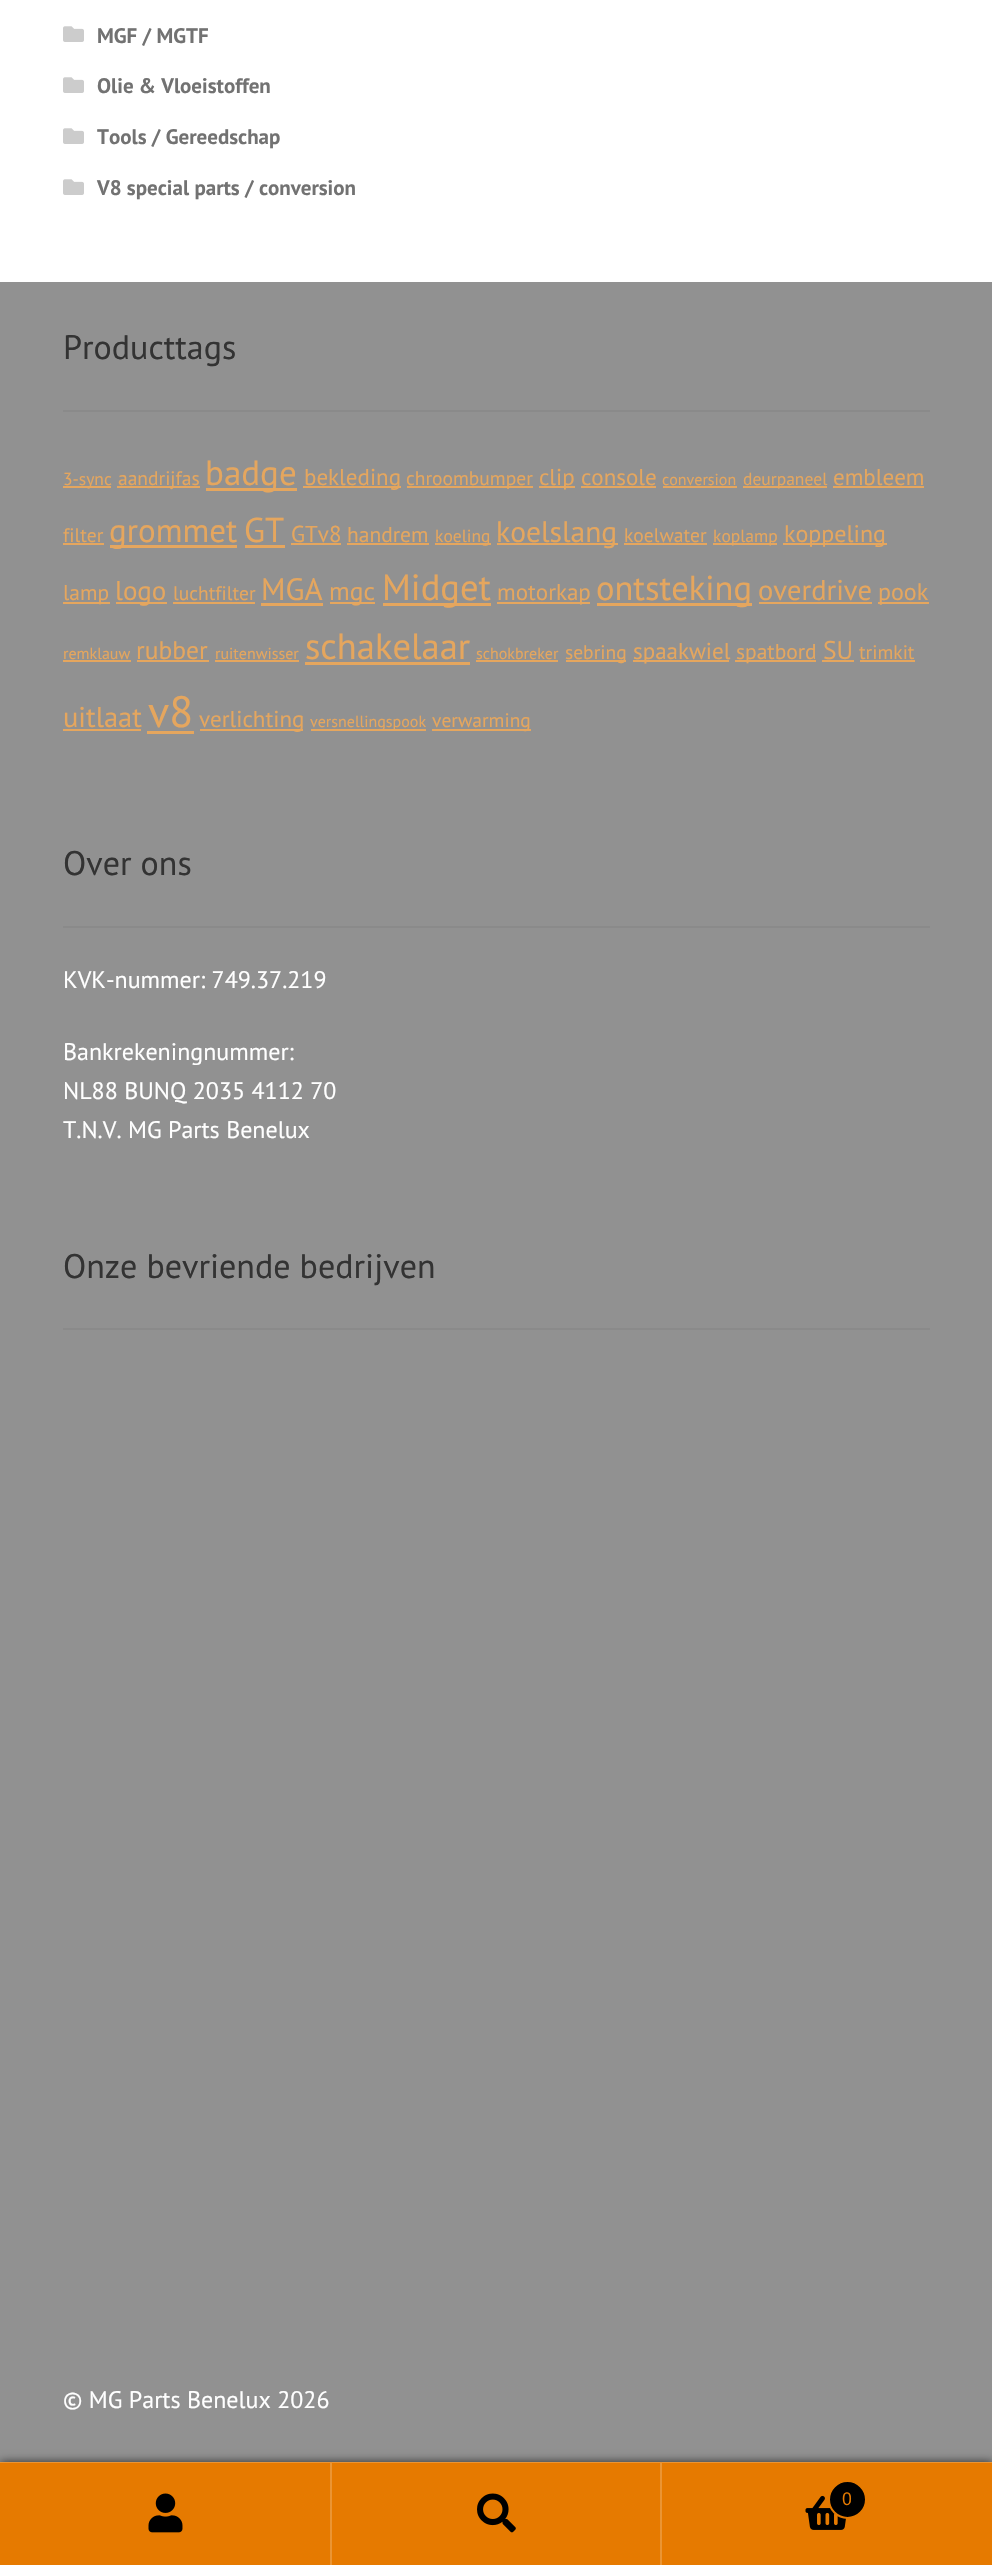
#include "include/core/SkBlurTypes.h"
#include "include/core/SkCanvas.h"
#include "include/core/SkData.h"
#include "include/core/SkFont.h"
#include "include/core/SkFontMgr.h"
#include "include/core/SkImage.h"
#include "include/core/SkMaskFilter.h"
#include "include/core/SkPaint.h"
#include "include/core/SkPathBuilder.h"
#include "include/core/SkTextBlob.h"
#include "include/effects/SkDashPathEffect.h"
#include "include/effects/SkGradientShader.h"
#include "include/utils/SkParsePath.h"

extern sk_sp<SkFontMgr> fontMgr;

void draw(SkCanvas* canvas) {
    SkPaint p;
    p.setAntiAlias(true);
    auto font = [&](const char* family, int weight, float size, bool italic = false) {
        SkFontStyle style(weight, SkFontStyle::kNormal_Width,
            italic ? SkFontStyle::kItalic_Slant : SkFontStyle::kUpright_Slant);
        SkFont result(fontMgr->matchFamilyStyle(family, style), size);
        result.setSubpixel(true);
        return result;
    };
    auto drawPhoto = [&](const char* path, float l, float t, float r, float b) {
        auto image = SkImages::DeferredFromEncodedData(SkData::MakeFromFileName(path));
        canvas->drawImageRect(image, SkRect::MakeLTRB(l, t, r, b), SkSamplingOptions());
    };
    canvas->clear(0xFFFFFFFF);
    drawPhoto("media/1.png", 63, 26, 84, 42);
    auto font1 = font("PT Sans", 700, 21);
    p.setColor(0xFF727272);
    canvas->drawString("MGF / MGTF", 97, 43, font1, p);
    drawPhoto("media/1.png", 63, 77, 84, 93);
    canvas->drawString("Olie & Vloeistoffen", 97, 93, font1, p);
    drawPhoto("media/1.png", 63, 128, 84, 144);
    canvas->drawString("Tools / Gereedschap", 97, 144, font1, p);
    drawPhoto("media/1.png", 63, 179, 84, 195);
    canvas->drawString("V8 special parts / conversion", 97, 195, font1, p);
    p.setColor(0xFF919191);
    canvas->drawRect(SkRect::MakeLTRB(0, 282, 992, 2462), p);
    p.setColor(0xFF8A8A8A);
    canvas->drawRect(SkRect::MakeLTRB(63, 410, 930, 412), p);
    auto font2 = font("PT Sans", 400, 34);
    p.setColor(0xFF333333);
    canvas->drawString("Producttags", 63, 359, font2, p);
    p.setColor(0xFFE5A65E);
    canvas->drawRect(SkRect::MakeLTRB(63, 486, 111, 488), p);
    auto font3 = font("PT Sans", 400, 17.5f);
    canvas->drawString("3-sync", 63, 485, font3, p);
    canvas->drawRect(SkRect::MakeLTRB(117, 486, 200, 488), p);
    auto font4 = font("PT Sans", 400, 19.5f);
    canvas->drawString("aandrijfas", 118, 485, font4, p);
    canvas->drawRect(SkRect::MakeLTRB(206, 488, 297, 491), p);
    auto font5 = font("PT Sans", 400, 35);
    canvas->drawString("badge", 205, 485, font5, p);
    canvas->drawRect(SkRect::MakeLTRB(303, 486, 401, 488), p);
    auto font6 = font("PT Sans", 400, 23);
    canvas->drawString("bekleding", 304, 485, font6, p);
    canvas->drawRect(SkRect::MakeLTRB(407, 486, 533, 488), p);
    canvas->drawString("chroombumper", 406, 485, font4, p);
    canvas->drawRect(SkRect::MakeLTRB(539, 486, 575, 488), p);
    canvas->drawString("clip", 539, 485, font6, p);
    canvas->drawString("console", 581, 485, font6, p);
    canvas->drawRect(SkRect::MakeLTRB(581, 486, 656, 488), p);
    auto font7 = font("PT Sans", 400, 16);
    canvas->drawString("conversion", 662, 485, font7, p);
    canvas->drawRect(SkRect::MakeLTRB(663, 486, 737, 488), p);
    canvas->drawRect(SkRect::MakeLTRB(743, 486, 827, 488), p);
    canvas->drawString("deurpaneel", 743, 485, font3, p);
    canvas->drawString("embleem", 833, 485, font6, p);
    canvas->drawRect(SkRect::MakeLTRB(833, 486, 924, 488), p);
    canvas->drawString("filter", 63, 542, font4, p);
    canvas->drawRect(SkRect::MakeLTRB(63, 543, 104, 545), p);
    canvas->drawRect(SkRect::MakeLTRB(110, 545, 237, 548), p);
    auto font8 = font("PT Sans", 400, 33);
    canvas->drawString("grommet", 109, 542, font8, p);
    auto font9 = font("PT Sans", 400, 34.5f);
    canvas->drawString("GT", 244, 542, font9, p);
    canvas->drawRect(SkRect::MakeLTRB(245, 545, 285, 548), p);
    canvas->drawString("GTv8", 291, 542, font6, p);
    canvas->drawRect(SkRect::MakeLTRB(291, 543, 341, 545), p);
    auto font10 = font("PT Sans", 400, 21.5f);
    canvas->drawString("handrem", 347, 542, font10, p);
    canvas->drawRect(SkRect::MakeLTRB(347, 543, 429, 545), p);
    canvas->drawRect(SkRect::MakeLTRB(435, 543, 491, 545), p);
    canvas->drawString("koeling", 435, 542, font3, p);
    canvas->drawRect(SkRect::MakeLTRB(497, 543, 618, 545), p);
    auto font11 = font("PT Sans", 400, 29.5f);
    canvas->drawString("koelslang", 496, 542, font11, p);
    canvas->drawString("koelwater", 624, 542, font4, p);
    canvas->drawRect(SkRect::MakeLTRB(624, 543, 707, 545), p);
    canvas->drawRect(SkRect::MakeLTRB(713, 543, 777, 545), p);
    canvas->drawString("koplamp", 713, 542, font3, p);
    canvas->drawRect(SkRect::MakeLTRB(783, 543, 887, 545), p);
    auto font12 = font("PT Sans", 400, 24);
    canvas->drawString("koppeling", 784, 542, font12, p);
    canvas->drawRect(SkRect::MakeLTRB(63, 602, 110, 604), p);
    canvas->drawString("lamp", 63, 600, font10, p);
    canvas->drawRect(SkRect::MakeLTRB(116, 602, 167, 604), p);
    auto font13 = font("PT Sans", 400, 27);
    canvas->drawString("logo", 115, 600, font13, p);
    canvas->drawString("luchtfilter", 173, 600, font4, p);
    canvas->drawRect(SkRect::MakeLTRB(173, 602, 255, 604), p);
    auto font14 = font("PT Sans", 400, 31);
    canvas->drawString("MGA", 261, 600, font14, p);
    canvas->drawRect(SkRect::MakeLTRB(261, 603, 323, 606), p);
    canvas->drawRect(SkRect::MakeLTRB(330, 602, 375, 604), p);
    auto font15 = font("PT Sans", 400, 25.5f);
    canvas->drawString("mgc", 329, 600, font15, p);
    canvas->drawRect(SkRect::MakeLTRB(383, 603, 491, 606), p);
    auto font16 = font("PT Sans", 400, 36.5f);
    canvas->drawString("Midget", 382, 600, font16, p);
    canvas->drawRect(SkRect::MakeLTRB(497, 602, 590, 604), p);
    canvas->drawString("motorkap", 497, 600, font6, p);
    canvas->drawRect(SkRect::MakeLTRB(597, 603, 752, 606), p);
    canvas->drawString("ontsteking", 596, 600, font9, p);
    auto font17 = font("PT Sans", 400, 28.5f);
    canvas->drawString("overdrive", 758, 600, font17, p);
    canvas->drawRect(SkRect::MakeLTRB(759, 602, 872, 604), p);
    canvas->drawRect(SkRect::MakeLTRB(878, 602, 929, 604), p);
    canvas->drawString("pook", 878, 600, font12, p);
    canvas->drawString("remklauw", 63, 659, font7, p);
    canvas->drawRect(SkRect::MakeLTRB(63, 660, 131, 662), p);
    canvas->drawString("rubber", 136, 659, font15, p);
    canvas->drawRect(SkRect::MakeLTRB(137, 660, 209, 662), p);
    canvas->drawString("ruitenwisser", 215, 659, font7, p);
    canvas->drawRect(SkRect::MakeLTRB(215, 660, 299, 662), p);
    canvas->drawString("schakelaar", 305, 659, font16, p);
    canvas->drawRect(SkRect::MakeLTRB(305, 662, 470, 665), p);
    canvas->drawString("schokbreker", 476, 659, font7, p);
    canvas->drawRect(SkRect::MakeLTRB(476, 660, 558, 662), p);
    canvas->drawRect(SkRect::MakeLTRB(566, 660, 626, 662), p);
    canvas->drawString("sebring", 565, 659, font4, p);
    canvas->drawRect(SkRect::MakeLTRB(633, 660, 729, 662), p);
    canvas->drawString("spaakwiel", 633, 659, font6, p);
    canvas->drawRect(SkRect::MakeLTRB(735, 660, 816, 662), p);
    canvas->drawString("spatbord", 736, 659, font10, p);
    canvas->drawString("SU", 823, 659, font15, p);
    canvas->drawRect(SkRect::MakeLTRB(822, 660, 854, 662), p);
    canvas->drawString("trimkit", 859, 659, font4, p);
    canvas->drawRect(SkRect::MakeLTRB(860, 660, 915, 662), p);
    canvas->drawString("uitlaat", 63, 727, font17, p);
    canvas->drawRect(SkRect::MakeLTRB(63, 729, 141, 731), p);
    auto font18 = font("PT Sans", 400, 44);
    canvas->drawString("v8", 148, 727, font18, p);
    canvas->drawRect(SkRect::MakeLTRB(147, 731, 194, 734), p);
    canvas->drawRect(SkRect::MakeLTRB(200, 729, 303, 731), p);
    canvas->drawString("verlichting", 199, 727, font6, p);
    canvas->drawRect(SkRect::MakeLTRB(311, 729, 426, 731), p);
    canvas->drawString("versnellingspook", 310, 727, font7, p);
    canvas->drawRect(SkRect::MakeLTRB(432, 729, 531, 731), p);
    canvas->drawString("verwarming", 432, 727, font4, p);
    p.setColor(0xFF8A8A8A);
    canvas->drawRect(SkRect::MakeLTRB(63, 926, 930, 928), p);
    p.setColor(0xFF333333);
    canvas->drawString("Over ons", 63, 875, font2, p);
    p.setColor(0xFFFFFFFF);
    {
        const struct { const char* s; float x, y; } items[] = {
            {"KVK-nummer: 749.37.219", 63, 988},
            {"Bankrekeningnummer:", 63, 1060},
            {"NL88 BUNQ 2035 4112 70", 63, 1099},
            {"T.N.V. MG Parts Benelux", 63, 1138},
        };
        for (auto [s, x, y] : items) {
            canvas->drawString(s, x, y, font12, p);
        }
    }
    p.setColor(0xFF8A8A8A);
    canvas->drawRect(SkRect::MakeLTRB(63, 1328, 930, 1330), p);
    p.setColor(0xFF333333);
    canvas->drawString("Onze bevriende bedrijven", 63, 1278, font2, p);
    p.setColor(0xFFFFFFFF);
    canvas->drawString("© MG Parts Benelux 2026", 63, 2408, font12, p);
    p.setColor(0xB3000000);
    p.setMaskFilter(SkMaskFilter::MakeBlur(kNormal_SkBlurStyle, 4.5f));
    canvas->drawRect(SkRect::MakeLTRB(0, 2462, 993, 2565), p);
    p.setMaskFilter(nullptr);
    {
        const struct { float l, t, r, b; SkColor color; } items[] = {
            {0, 2462, 992, 2463, 0xFFEB9533},
            {0, 2463, 330, 2565, 0xFFE67A00},
            {330, 2463, 332, 2565, 0xFFEB9533},
        };
        for (auto [l, t, r, b, color] : items) {
            p.setColor(color);
            canvas->drawRect(SkRect::MakeLTRB(l, t, r, b), p);
        }
    }
    drawPhoto("media/2.png", 148, 2493, 183, 2533);
    p.setColor(0xFFE67A00);
    canvas->drawRect(SkRect::MakeLTRB(332, 2463, 660, 2565), p);
    p.setColor(0xFFEB9533);
    canvas->drawRect(SkRect::MakeLTRB(660, 2463, 662, 2565), p);
    drawPhoto("media/3.png", 477, 2493, 516, 2533);
    p.setColor(0xFFE67A00);
    canvas->drawRect(SkRect::MakeLTRB(662, 2463, 992, 2565), p);
    drawPhoto("media/4.png", 805, 2495, 846, 2530);
    p.setColor(0xFF000000);
    canvas->drawCircle(847.5f, 2499.5f, 18.5f, p);
    p.setStyle(SkPaint::kStroke_Style);
    p.setStrokeWidth(2);
    p.setColor(0xFFE67A00);
    canvas->drawCircle(847.5f, 2499.5f, 18.5f, p);
    auto font19 = font("PT Sans", 400, 18);
    p.setStyle(SkPaint::kFill_Style);
    canvas->drawString("0", 842, 2505, font19, p);
}
